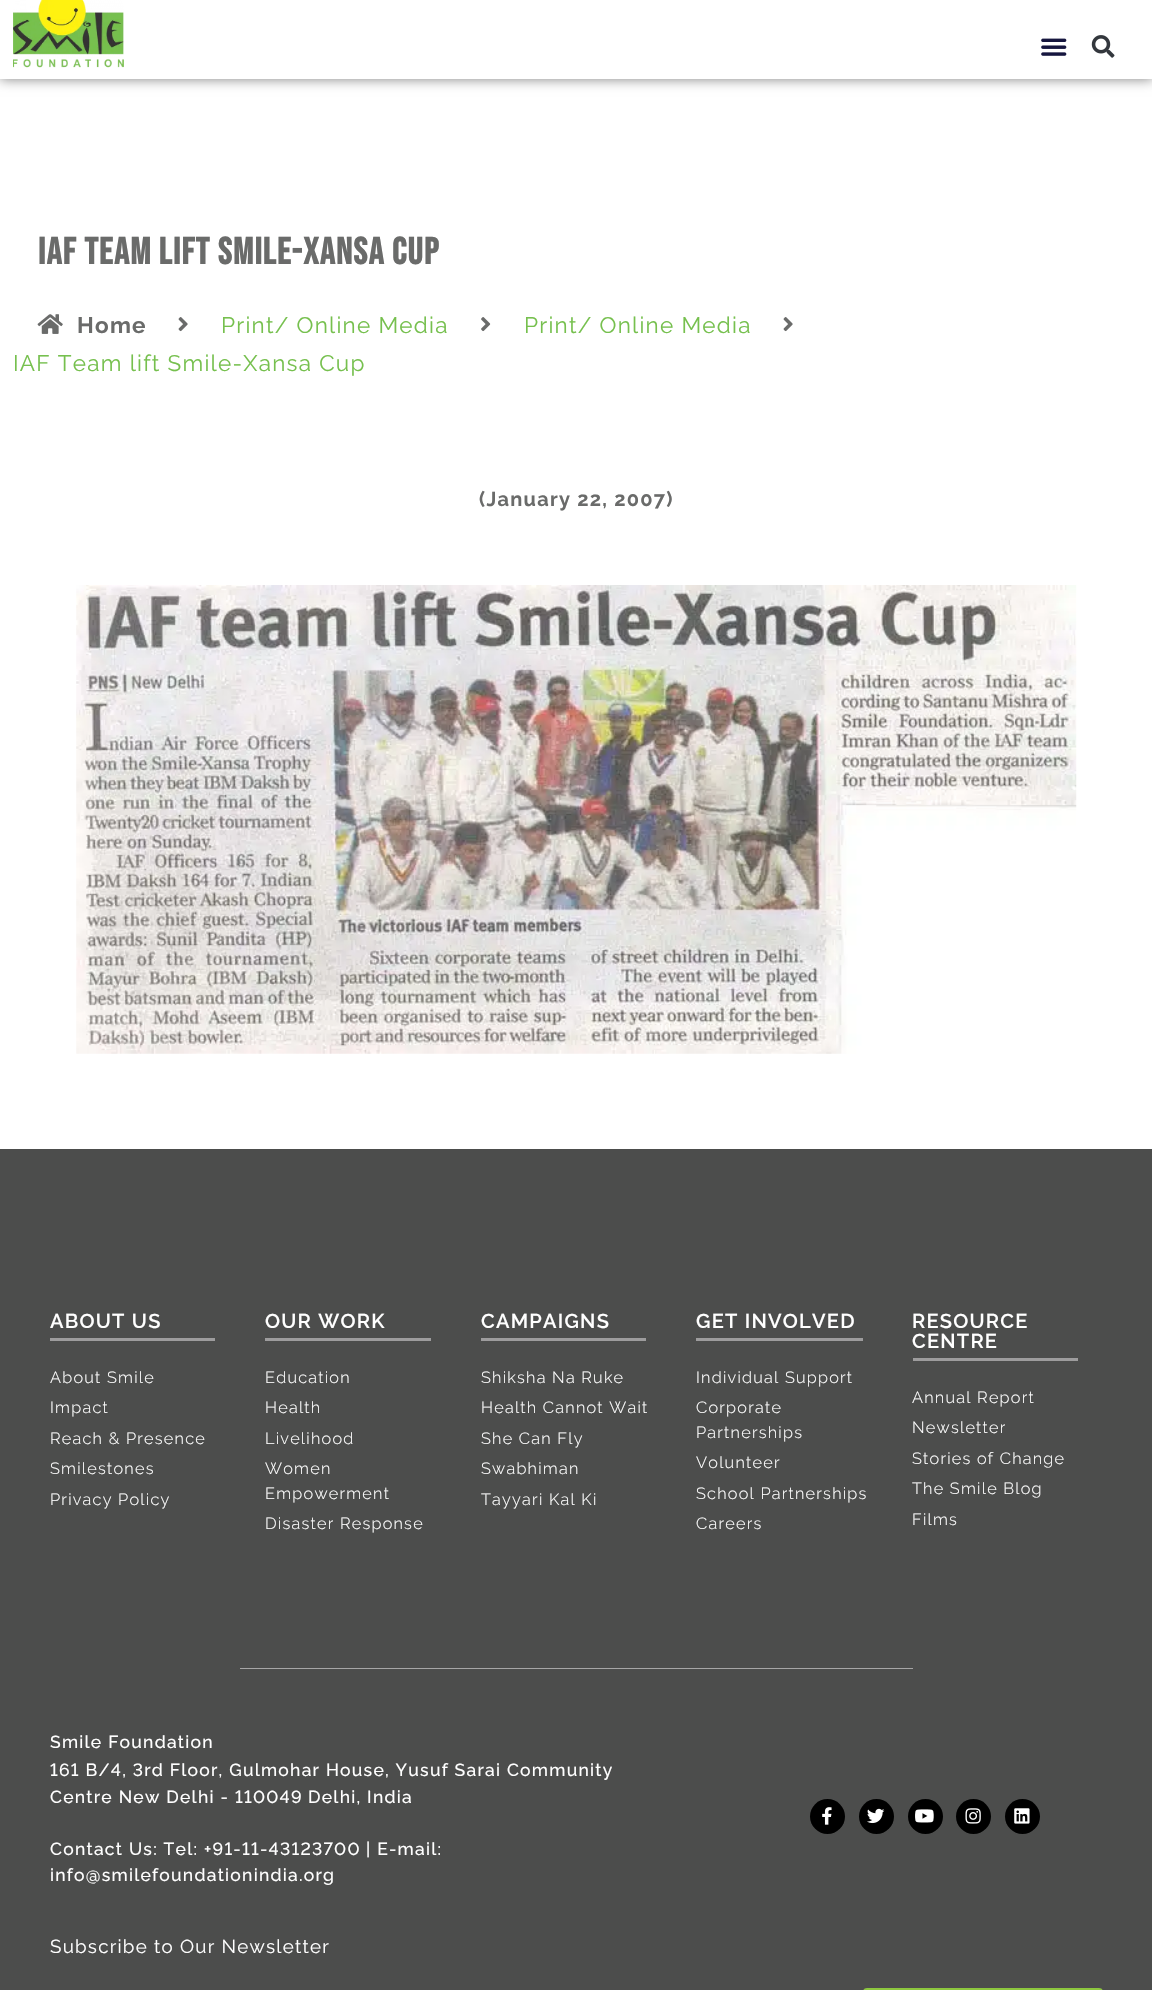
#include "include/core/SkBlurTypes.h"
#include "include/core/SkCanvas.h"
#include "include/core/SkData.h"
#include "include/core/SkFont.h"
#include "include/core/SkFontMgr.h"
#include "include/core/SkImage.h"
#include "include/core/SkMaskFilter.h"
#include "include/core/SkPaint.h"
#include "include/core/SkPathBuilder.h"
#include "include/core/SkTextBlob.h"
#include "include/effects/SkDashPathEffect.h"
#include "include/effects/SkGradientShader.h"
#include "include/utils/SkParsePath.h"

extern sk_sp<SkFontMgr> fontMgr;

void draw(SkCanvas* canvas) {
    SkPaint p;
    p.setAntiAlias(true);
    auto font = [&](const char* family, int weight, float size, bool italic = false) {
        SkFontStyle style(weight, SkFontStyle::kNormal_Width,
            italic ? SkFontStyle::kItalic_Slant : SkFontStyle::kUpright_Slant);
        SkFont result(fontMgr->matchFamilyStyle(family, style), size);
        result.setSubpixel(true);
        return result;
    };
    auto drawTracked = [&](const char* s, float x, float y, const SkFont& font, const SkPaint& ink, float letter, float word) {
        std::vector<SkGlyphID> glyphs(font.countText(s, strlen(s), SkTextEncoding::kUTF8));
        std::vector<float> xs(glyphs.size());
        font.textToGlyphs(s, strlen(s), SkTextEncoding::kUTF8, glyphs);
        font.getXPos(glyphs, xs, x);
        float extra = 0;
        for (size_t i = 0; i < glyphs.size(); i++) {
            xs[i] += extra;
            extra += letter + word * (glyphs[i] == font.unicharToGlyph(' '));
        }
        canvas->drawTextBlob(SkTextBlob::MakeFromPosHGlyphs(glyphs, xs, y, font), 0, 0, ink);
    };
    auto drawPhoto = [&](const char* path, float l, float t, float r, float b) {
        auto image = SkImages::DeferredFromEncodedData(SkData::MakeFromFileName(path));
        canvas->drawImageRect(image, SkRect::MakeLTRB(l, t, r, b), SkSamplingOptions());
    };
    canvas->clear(0xFFFFFFFF);
    p.setColor(0x80000000);
    p.setMaskFilter(SkMaskFilter::MakeBlur(kNormal_SkBlurStyle, 6));
    canvas->drawRect(SkRect::MakeLTRB(0, 0, 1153, 79), p);
    p.setMaskFilter(nullptr);
    p.setColor(0xFFFFFFFF);
    canvas->drawRect(SkRect::MakeLTRB(0, 0, 1152, 79), p);
    drawPhoto("media/1.png", 13, 0, 124, 68);
    drawPhoto("media/2.png", 1041, 38, 1067, 56);
    drawPhoto("media/3.png", 1091, 35, 1115, 58);
    auto font1 = font("Bebas Neue", 700, 37.5f);
    p.setColor(0xFF6A6B6A);
    drawTracked("IAF Team lift Smile-Xansa Cup", 38, 264, font1, p, 1.25f, 0);
    drawPhoto("media/4.png", 37, 314, 63, 334);
    auto font2 = font("Raleway", 700, 22.5f);
    drawTracked("Home", 77, 333, font2, p, 1.25f, 0);
    drawPhoto("media/5.png", 178, 317, 188, 332);
    auto font3 = font("Raleway", 400, 22.5f);
    p.setColor(0xFF76C04E);
    drawTracked("Print/ Online Media", 221, 333, font3, p, 1.25f, 0);
    drawPhoto("media/6.png", 481, 317, 491, 332);
    drawTracked("Print/ Online Media", 524, 333, font3, p, 1.25f, 0);
    drawPhoto("media/5.png", 783, 317, 793, 332);
    drawTracked("IAF Team lift Smile-Xansa Cup", 13, 371, font3, p, 1.25f, 0);
    auto font4 = font("Raleway", 700, 20);
    p.setColor(0xFF6A6B6A);
    drawTracked("(January 22, 2007)", 479, 506, font4, p, 1.25f, 0);
    drawPhoto("media/7.png", 76, 585, 1077, 1054);
    p.setColor(0xFF4C4D4C);
    canvas->drawRect(SkRect::MakeLTRB(0, 1149, 1152, 1990), p);
    p.setColor(0xFF9D9C9D);
    canvas->drawRect(SkRect::MakeLTRB(50, 1338, 215, 1341), p);
    auto font5 = font("Raleway", 600, 20);
    p.setColor(0xFFFFFFFF);
    drawTracked("ABOUT US", 50, 1328, font5, p, 1.25f, 0);
    auto font6 = font("Raleway", 300, 16.25f);
    {
        const struct { const char* s; float x, y; } items[] = {
            {"About Smile", 50, 1383},
            {"Impact", 50, 1413},
            {"Reach & Presence", 50, 1444},
            {"Smilestones", 50, 1474},
            {"Privacy Policy", 50, 1505},
        };
        for (auto [s, x, y] : items) {
            drawTracked(s, x, y, font6, p, 1.25f, 0);
        }
    }
    p.setColor(0xFF9D9C9D);
    canvas->drawRect(SkRect::MakeLTRB(265, 1338, 431, 1341), p);
    p.setColor(0xFFFFFFFF);
    drawTracked("OUR WORK", 265, 1328, font5, p, 1.25f, 0);
    {
        const struct { const char* s; float x, y; } items[] = {
            {"Education", 265, 1383},
            {"Health", 265, 1413},
            {"Livelihood", 265, 1444},
            {"Women", 265, 1474},
            {"Empowerment", 265, 1499},
            {"Disaster Response", 265, 1529},
        };
        for (auto [s, x, y] : items) {
            drawTracked(s, x, y, font6, p, 1.25f, 0);
        }
    }
    p.setColor(0xFF9D9C9D);
    canvas->drawRect(SkRect::MakeLTRB(481, 1338, 646, 1341), p);
    p.setColor(0xFFFFFFFF);
    drawTracked("CAMPAIGNS", 481, 1328, font5, p, 1.25f, 0);
    {
        const struct { const char* s; float x, y; } items[] = {
            {"Shiksha Na Ruke", 481, 1383},
            {"Health Cannot Wait", 481, 1413},
            {"She Can Fly", 481, 1444},
            {"Swabhiman", 481, 1474},
            {"Tayyari Kal Ki", 481, 1505},
        };
        for (auto [s, x, y] : items) {
            drawTracked(s, x, y, font6, p, 1.25f, 0);
        }
    }
    p.setColor(0xFF9D9C9D);
    canvas->drawRect(SkRect::MakeLTRB(696, 1338, 863, 1341), p);
    p.setColor(0xFFFFFFFF);
    drawTracked("GET INVOLVED", 696, 1328, font5, p, 1.25f, 0);
    {
        const struct { const char* s; float x, y; } items[] = {
            {"Individual Support", 696, 1383},
            {"Corporate", 696, 1413},
            {"Partnerships", 696, 1438},
            {"Volunteer", 696, 1468},
            {"School Partnerships", 696, 1499},
            {"Careers", 696, 1529},
        };
        for (auto [s, x, y] : items) {
            drawTracked(s, x, y, font6, p, 1.25f, 0);
        }
    }
    p.setColor(0xFF9D9C9D);
    canvas->drawRect(SkRect::MakeLTRB(913, 1358, 1078, 1361), p);
    p.setColor(0xFFFFFFFF);
    drawTracked("RESOURCE", 912, 1328, font5, p, 1.25f, 0);
    drawTracked("CENTRE", 912, 1348, font5, p, 1.25f, 0);
    {
        const struct { const char* s; float x, y; } items[] = {
            {"Annual Report", 912, 1403},
            {"Newsletter", 912, 1433},
            {"Stories of Change", 912, 1464},
            {"The Smile Blog", 912, 1494},
            {"Films", 912, 1525},
        };
        for (auto [s, x, y] : items) {
            drawTracked(s, x, y, font6, p, 1.25f, 0);
        }
    }
    p.setColor(0xFFA6A6A6);
    canvas->drawRect(SkRect::MakeLTRB(240, 1668, 913, 1669), p);
    auto font7 = font("Raleway", 500, 17.5f);
    p.setColor(0xFFFFFFFF);
    drawTracked("Smile Foundation", 50, 1748, font7, p, 1.25f, 0);
    auto font8 = font("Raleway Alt", 500, 17.5f);
    drawTracked("161 B/4, 3rd Floor, Gulmohar House, Yusuf Sarai Community", 50, 1776, font8, p, 1.25f, 0);
    drawTracked("Centre New Delhi -", 50, 1803, font7, p, 1.25f, 0);
    drawTracked("110049", 235, 1803, font8, p, 1.25f, 0);
    drawTracked("Delhi, India", 308, 1803, font7, p, 1.25f, 0);
    drawTracked("Contact Us: Tel:", 50, 1855, font7, p, 1.25f, 0);
    drawTracked("+91-11-43123700", 204, 1855, font8, p, 1.25f, 0);
    drawTracked("| E-mail:", 366, 1855, font7, p, 1.25f, 0);
    drawTracked("info@smilefoundationindia.org", 50, 1881, font7, p, 1.25f, 0);
    p.setColor(0xFF000000);
    canvas->drawCircle(827.5f, 1816.5f, 17.5f, p);
    drawPhoto("media/8.png", 822, 1807, 832, 1825);
    canvas->drawCircle(876.5f, 1816.5f, 17.5f, p);
    drawPhoto("media/9.png", 867, 1808, 885, 1824);
    canvas->drawCircle(925.5f, 1816.5f, 17.5f, p);
    drawPhoto("media/10.png", 915, 1809, 934, 1823);
    canvas->drawCircle(973.5f, 1816.5f, 17.5f, p);
    drawPhoto("media/11.png", 965, 1808, 981, 1824);
    canvas->drawCircle(1022.5f, 1816.5f, 17.5f, p);
    drawPhoto("media/12.png", 1014, 1808, 1030, 1824);
    auto font9 = font("Raleway", 400, 18.75f);
    p.setColor(0xFFFFFFFF);
    drawTracked("Subscribe to Our Newsletter", 50, 1953, font9, p, 1.25f, 0);
    p.setColor(0xFF8DC73F);
    canvas->drawRoundRect(SkRect::MakeLTRB(863, 1988, 1103, 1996), 6, 6, p);
}
